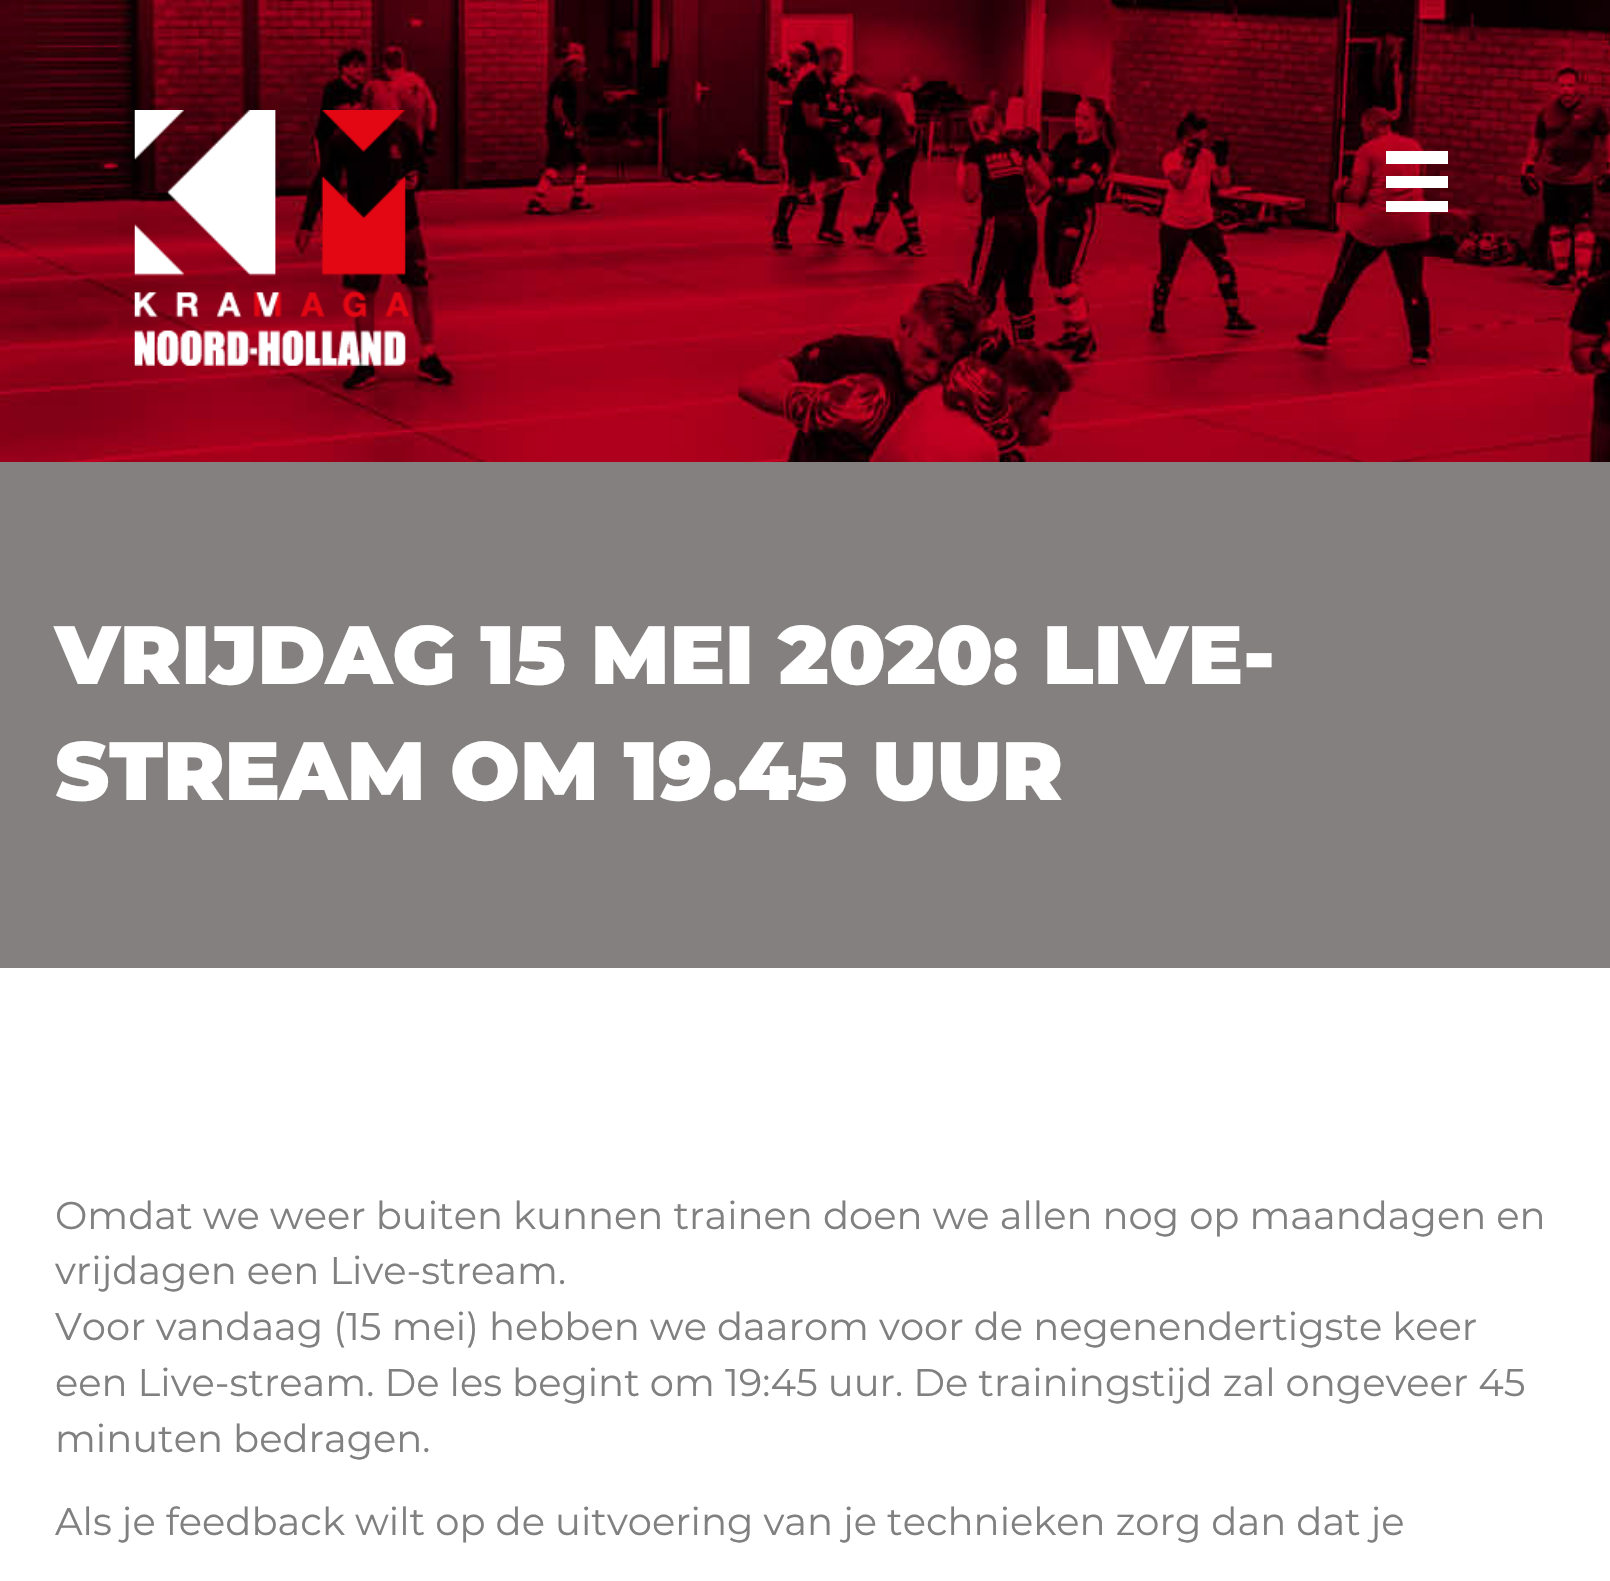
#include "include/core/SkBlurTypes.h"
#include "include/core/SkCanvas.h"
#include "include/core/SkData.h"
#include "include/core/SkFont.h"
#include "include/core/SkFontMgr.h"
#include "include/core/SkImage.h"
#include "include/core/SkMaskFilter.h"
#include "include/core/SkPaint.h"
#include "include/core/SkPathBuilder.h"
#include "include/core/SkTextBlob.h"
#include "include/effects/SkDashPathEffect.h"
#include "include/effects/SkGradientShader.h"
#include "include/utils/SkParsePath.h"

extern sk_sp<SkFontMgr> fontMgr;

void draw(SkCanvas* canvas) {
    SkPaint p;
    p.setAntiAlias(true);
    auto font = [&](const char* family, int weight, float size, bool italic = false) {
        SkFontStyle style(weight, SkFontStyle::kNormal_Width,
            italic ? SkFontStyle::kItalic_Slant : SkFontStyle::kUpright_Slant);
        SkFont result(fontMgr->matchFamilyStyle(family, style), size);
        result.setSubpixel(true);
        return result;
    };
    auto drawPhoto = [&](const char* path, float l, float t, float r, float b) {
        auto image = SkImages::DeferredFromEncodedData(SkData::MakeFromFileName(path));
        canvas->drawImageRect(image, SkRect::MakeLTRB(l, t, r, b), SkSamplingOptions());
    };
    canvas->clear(0xFFFFFFFF);
    drawPhoto("media/1.png", 0, 0, 1610, 462);
    drawPhoto("media/2.png", 134, 110, 410, 366);
    {
        const struct { float l, t, r, b; SkColor color; } items[] = {
            {1386, 151, 1448, 164, 0xFFFFFFFF},
            {1386, 176, 1448, 188, 0xFFFFFFFF},
            {1386, 201, 1448, 212, 0xFFFFFFFF},
            {0, 462, 1610, 968, 0xFF858080},
        };
        for (auto [l, t, r, b, color] : items) {
            p.setColor(color);
            canvas->drawRect(SkRect::MakeLTRB(l, t, r, b), p);
        }
    }
    auto font1 = font("Montserrat", 900, 82.5f);
    p.setColor(0xFFFFFFFF);
    canvas->drawString("VRIJDAG 15 MEI 2020: LIVE-", 55, 684, font1, p);
    canvas->drawString("STREAM OM 19.45 UUR", 55, 800, font1, p);
    auto font2 = font("Montserrat", 400, 38.5f);
    p.setColor(0xFF808080);
    {
        const struct { const char* s; float x, y; } items[] = {
            {"Omdat we weer buiten kunnen trainen doen we allen nog op maandagen en", 55, 1229},
            {"vrijdagen een Live-stream.", 55, 1284},
            {"Voor vandaag (15 mei) hebben we daarom voor de negenendertigste keer", 55, 1340},
            {"een Live-stream. De les begint om 19:45 uur. De trainingstijd zal ongeveer 45", 55, 1396},
            {"minuten bedragen.", 55, 1452},
            {"Als je feedback wilt op de uitvoering van je technieken zorg dan dat je", 55, 1535},
        };
        for (auto [s, x, y] : items) {
            canvas->drawString(s, x, y, font2, p);
        }
    }
}
